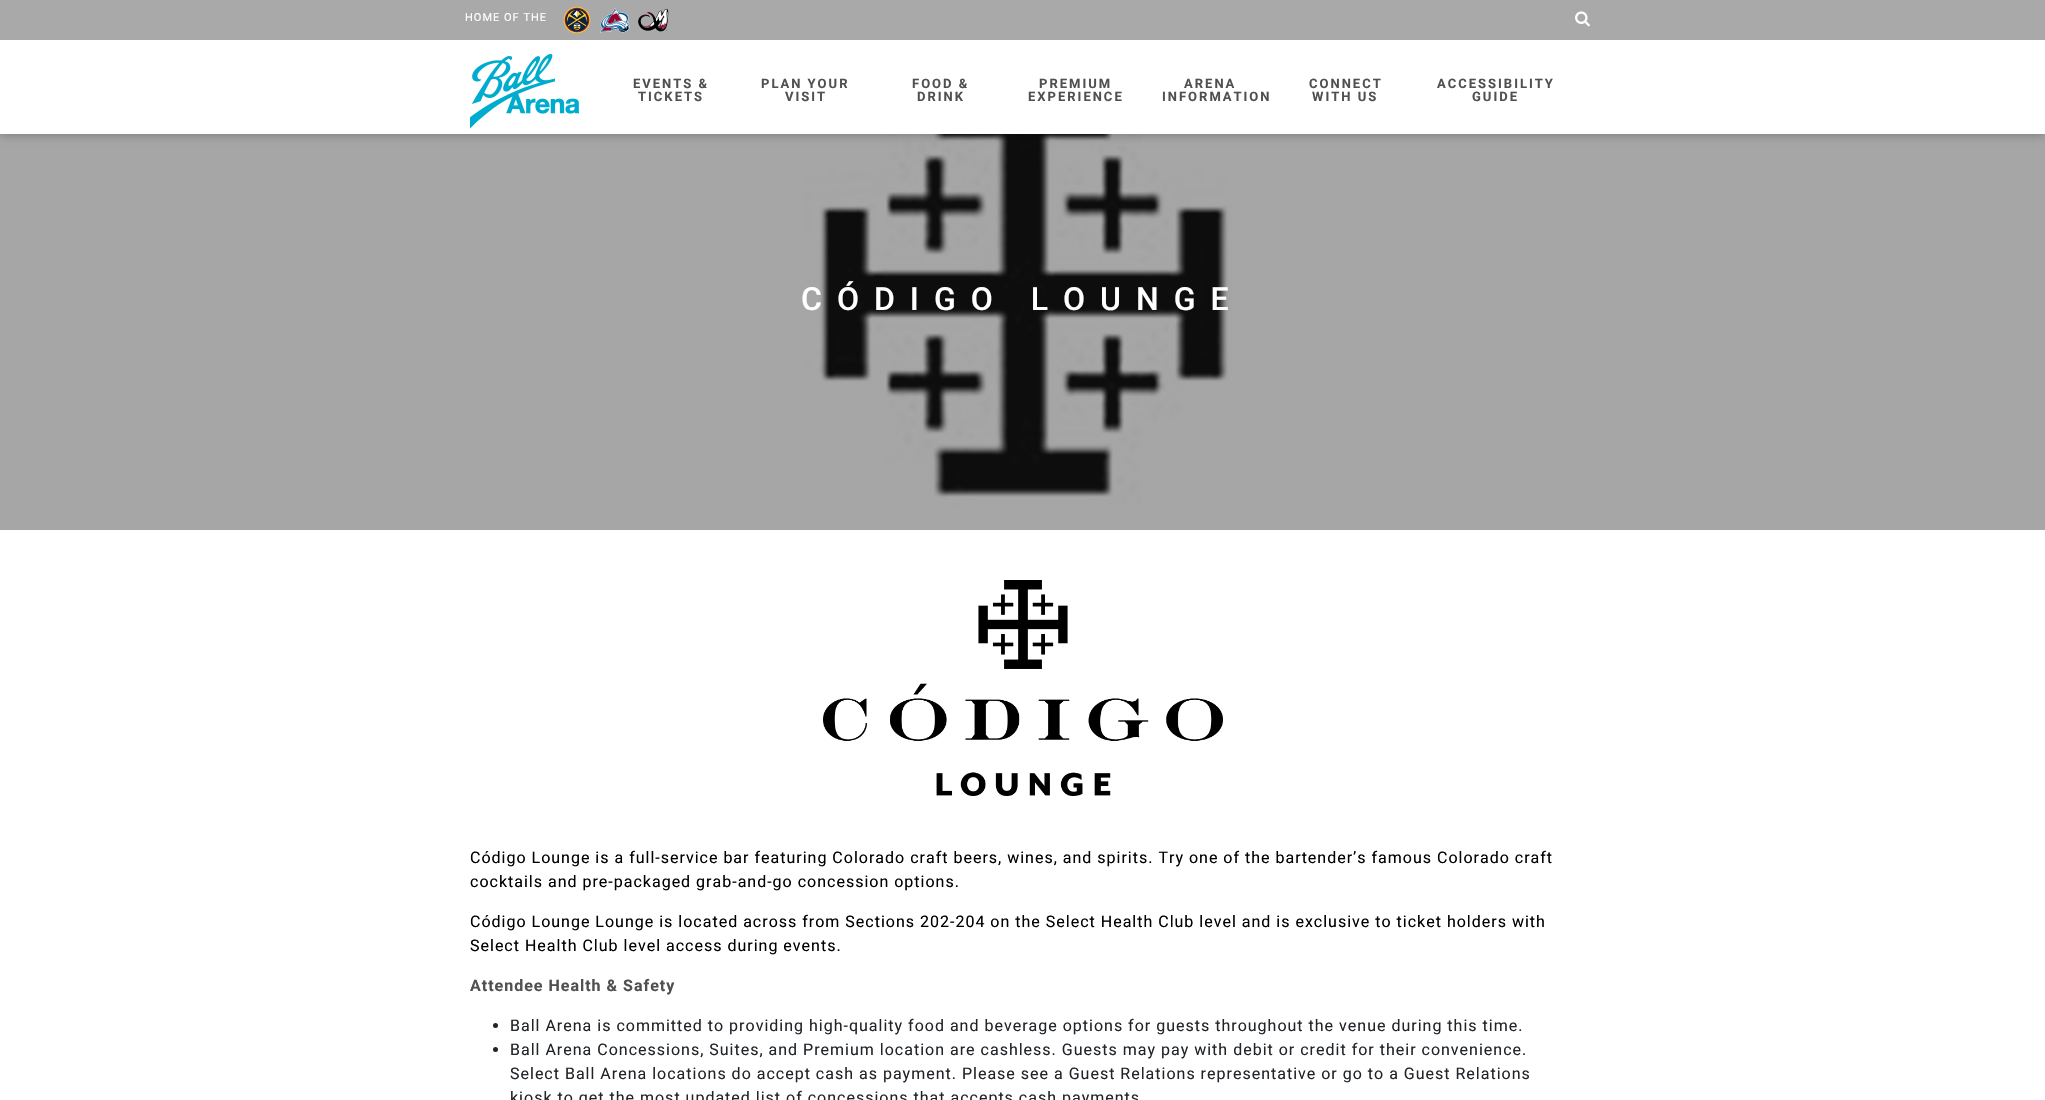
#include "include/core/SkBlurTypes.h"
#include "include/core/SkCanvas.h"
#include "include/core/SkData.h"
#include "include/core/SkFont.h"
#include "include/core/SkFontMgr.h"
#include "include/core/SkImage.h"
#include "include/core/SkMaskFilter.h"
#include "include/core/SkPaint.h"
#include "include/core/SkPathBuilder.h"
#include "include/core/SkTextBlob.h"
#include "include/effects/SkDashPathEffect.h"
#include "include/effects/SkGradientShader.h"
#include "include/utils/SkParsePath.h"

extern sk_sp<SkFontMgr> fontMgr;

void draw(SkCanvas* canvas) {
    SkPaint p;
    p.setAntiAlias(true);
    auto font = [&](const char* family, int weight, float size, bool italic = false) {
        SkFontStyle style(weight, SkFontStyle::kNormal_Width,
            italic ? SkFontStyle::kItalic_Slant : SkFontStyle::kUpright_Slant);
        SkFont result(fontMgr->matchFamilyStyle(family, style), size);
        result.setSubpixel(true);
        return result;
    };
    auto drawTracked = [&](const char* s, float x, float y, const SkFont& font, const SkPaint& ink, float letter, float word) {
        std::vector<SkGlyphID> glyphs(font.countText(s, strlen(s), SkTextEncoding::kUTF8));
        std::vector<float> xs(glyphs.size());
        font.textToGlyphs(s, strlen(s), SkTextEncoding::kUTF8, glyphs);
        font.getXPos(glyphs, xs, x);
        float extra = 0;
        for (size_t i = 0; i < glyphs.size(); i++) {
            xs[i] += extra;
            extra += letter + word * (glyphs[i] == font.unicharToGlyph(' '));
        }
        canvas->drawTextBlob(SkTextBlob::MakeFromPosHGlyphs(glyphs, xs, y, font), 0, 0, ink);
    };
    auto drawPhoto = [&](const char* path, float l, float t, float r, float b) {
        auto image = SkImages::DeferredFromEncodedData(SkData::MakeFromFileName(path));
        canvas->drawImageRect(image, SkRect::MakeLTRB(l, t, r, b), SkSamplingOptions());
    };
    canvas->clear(0xFFFFFFFF);
    drawPhoto("media/6.png", 0, 134, 2045, 530);
    p.setColor(0x4D000000);
    p.setMaskFilter(SkMaskFilter::MakeBlur(kNormal_SkBlurStyle, 5));
    canvas->drawRect(SkRect::MakeLTRB(0, 40, 2045, 134), p);
    p.setMaskFilter(nullptr);
    p.setColor(0xFFA9A9A9);
    canvas->drawRect(SkRect::MakeLTRB(0, 0, 2045, 40), p);
    auto font1 = font("Roboto", 400, 11);
    p.setColor(0xFFFFFFFF);
    drawTracked("HOME OF THE", 465, 21, font1, p, 1, 0);
    drawPhoto("media/1.png", 563, 6, 591, 34);
    drawPhoto("media/2.png", 600, 8, 630, 33);
    drawPhoto("media/3.png", 638, 8, 669, 32);
    drawPhoto("media/4.png", 1575, 11, 1590, 27);
    canvas->drawRect(SkRect::MakeLTRB(0, 40, 2045, 134), p);
    drawPhoto("media/5.png", 470, 54, 579, 129);
    auto font2 = font("Roboto", 700, 13);
    p.setColor(0xFF505050);
    {
        const struct { const char* s; float x, y; } items[] = {
            {"EVENTS &", 633, 88},
            {"TICKETS", 638, 101},
            {"PLAN YOUR", 761, 88},
            {"VISIT", 785, 101},
            {"FOOD &", 912, 88},
            {"DRINK", 917, 101},
            {"PREMIUM", 1039, 88},
            {"EXPERIENCE", 1028, 101},
            {"ARENA", 1184, 88},
            {"INFORMATION", 1162, 101},
            {"CONNECT", 1309, 88},
            {"WITH US", 1312, 101},
            {"ACCESSIBILITY", 1437, 88},
            {"GUIDE", 1472, 101},
        };
        for (auto [s, x, y] : items) {
            drawTracked(s, x, y, font2, p, 2, 0);
        }
    }
    auto font3 = font("Roboto", 500, 32);
    p.setColor(0xFFFFFFFF);
    drawTracked("CÓDIGO LOUNGE", 801, 310, font3, p, 15, 0);
    drawPhoto("media/7.png", 823, 580, 1223, 796);
    auto font4 = font("Roboto", 400, 16);
    p.setColor(0xFF000000);
    {
        const struct { const char* s; float x, y; } items[] = {
            {"Código Lounge is a full-service bar featuring Colorado craft beers, wines, and spirits. Try one of the bartender’s famous Colorado craft", 470, 863},
            {"cocktails and pre-packaged grab-and-go concession options.", 470, 887},
            {"Código Lounge Lounge is located across from Sections 202-204 on the Select Health Club level and is exclusive to ticket holders with", 470, 927},
            {"Select Health Club level access during events.", 470, 951},
        };
        for (auto [s, x, y] : items) {
            drawTracked(s, x, y, font4, p, 1, 0);
        }
    }
    auto font5 = font("Roboto", 700, 16);
    p.setColor(0xFF505050);
    drawTracked("Attendee Health & Safety", 470, 991, font5, p, 1, 0);
    p.setColor(0xFF212529);
    canvas->drawCircle(495.5f, 1025.5f, 2.5f, p);
    drawTracked("Ball Arena is committed to providing high-quality food and beverage options for guests throughout the venue during this time.", 510, 1031, font4, p, 1, 0);
    canvas->drawCircle(495.5f, 1049.5f, 2.5f, p);
    {
        const struct { const char* s; float x, y; } items[] = {
            {"Ball Arena Concessions, Suites, and Premium location are cashless. Guests may pay with debit or credit for their convenience.", 510, 1055},
            {"Select Ball Arena locations do accept cash as payment. Please see a Guest Relations representative or go to a Guest Relations", 510, 1079},
            {"kiosk to get the most updated list of concessions that accepts cash payments", 510, 1103},
        };
        for (auto [s, x, y] : items) {
            drawTracked(s, x, y, font4, p, 1, 0);
        }
    }
}
